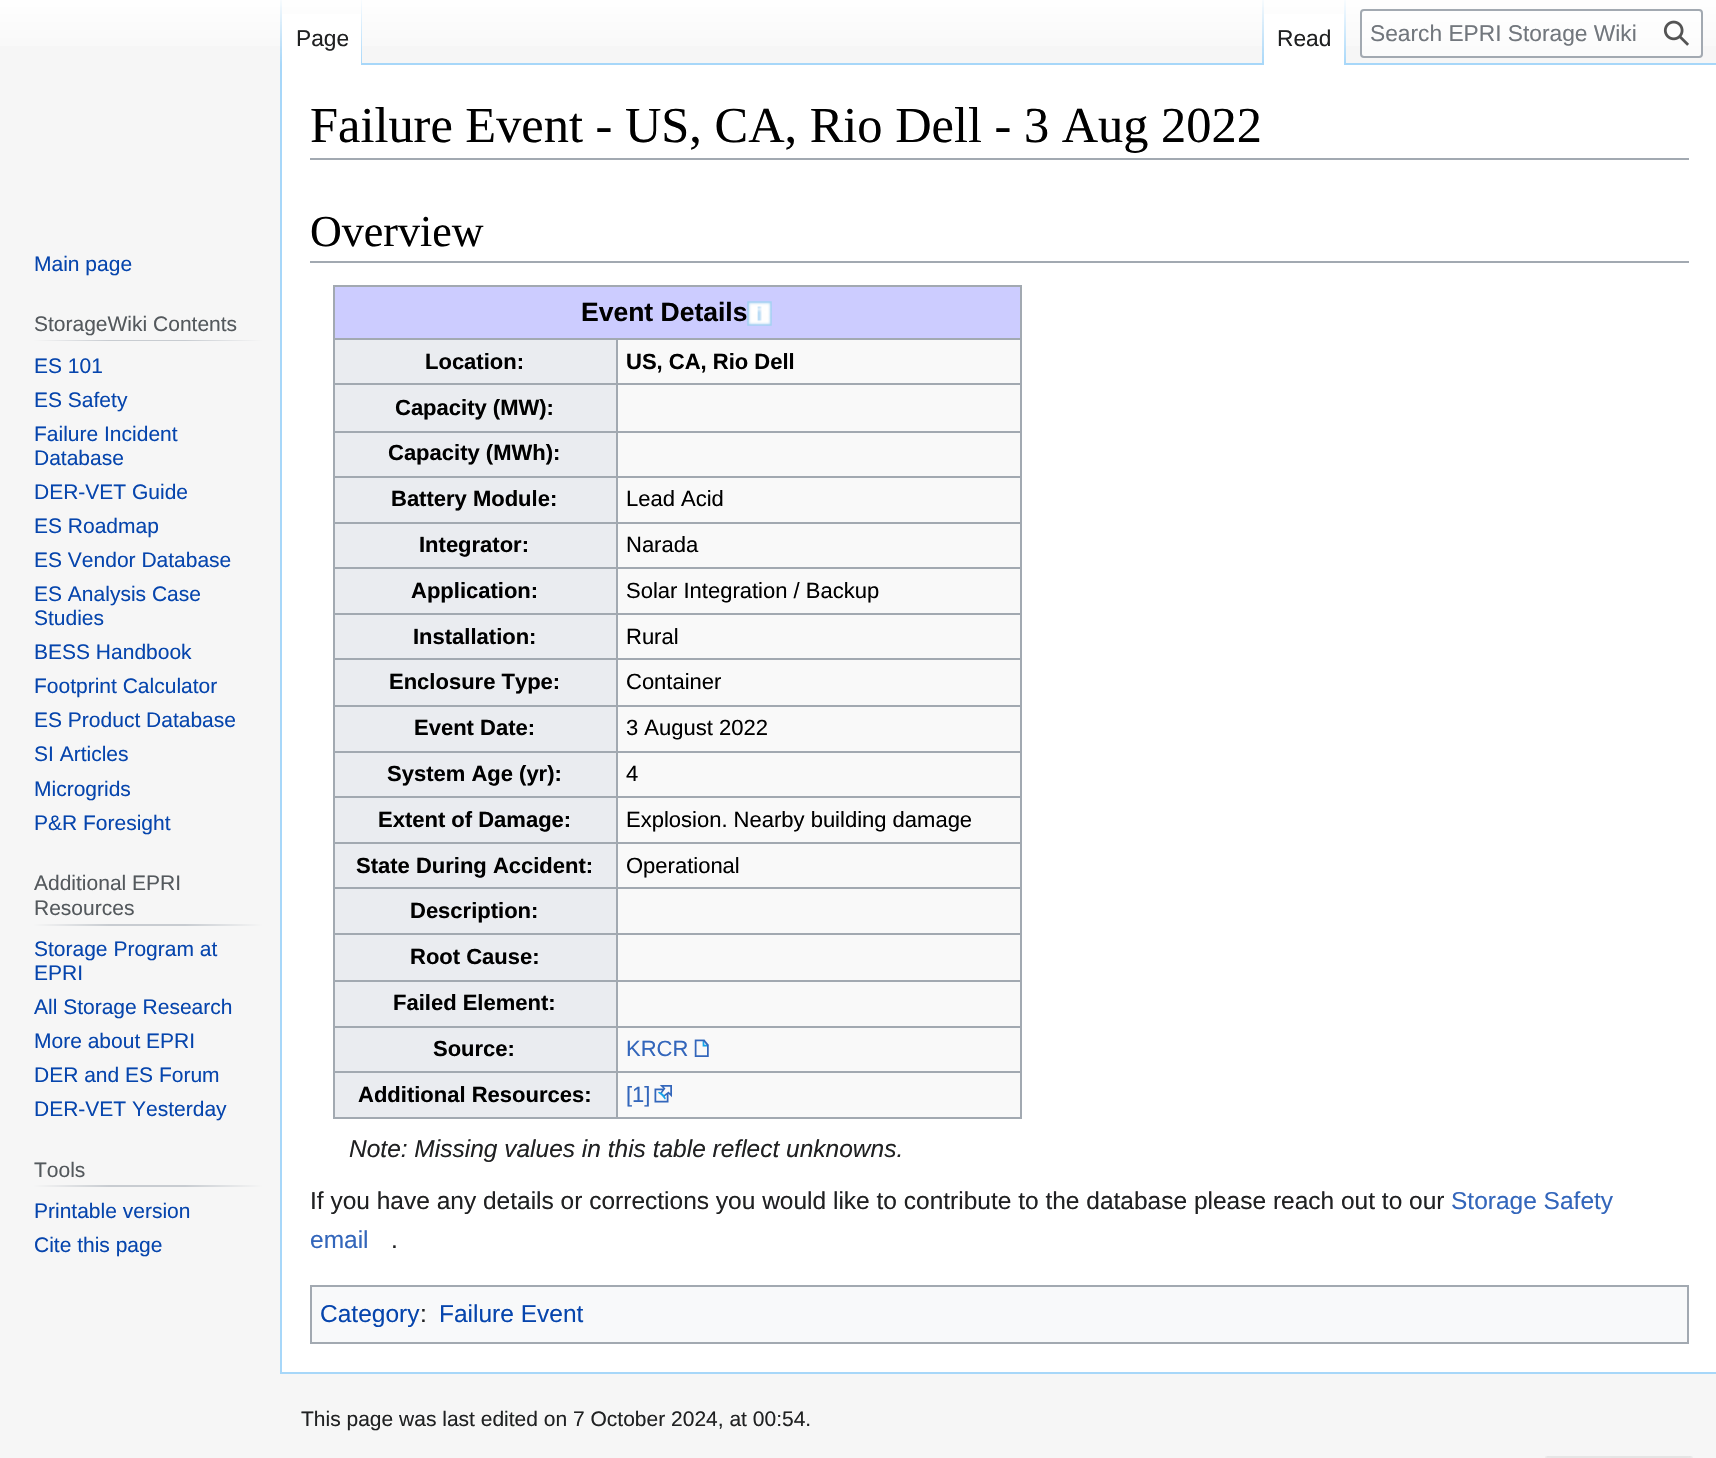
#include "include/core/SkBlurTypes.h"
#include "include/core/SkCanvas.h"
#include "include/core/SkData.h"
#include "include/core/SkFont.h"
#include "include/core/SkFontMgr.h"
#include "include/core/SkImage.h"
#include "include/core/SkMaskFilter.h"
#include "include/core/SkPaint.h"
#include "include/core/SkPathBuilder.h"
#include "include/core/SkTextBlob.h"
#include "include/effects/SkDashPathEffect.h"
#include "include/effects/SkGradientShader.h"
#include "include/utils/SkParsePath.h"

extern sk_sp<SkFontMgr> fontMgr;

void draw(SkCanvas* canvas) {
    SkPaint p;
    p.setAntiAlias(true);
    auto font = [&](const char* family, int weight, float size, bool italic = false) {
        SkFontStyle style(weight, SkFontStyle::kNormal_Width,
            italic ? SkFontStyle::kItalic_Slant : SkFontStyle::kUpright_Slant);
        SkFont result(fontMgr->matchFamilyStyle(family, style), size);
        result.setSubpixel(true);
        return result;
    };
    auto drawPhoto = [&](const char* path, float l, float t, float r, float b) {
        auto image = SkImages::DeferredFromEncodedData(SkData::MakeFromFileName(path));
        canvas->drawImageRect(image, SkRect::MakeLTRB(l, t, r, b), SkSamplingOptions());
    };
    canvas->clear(0xFFF6F6F6);
    {
        const SkColor colors[] = {0xFFFFFFFF, 0xFFF6F6F6};
        const float stops[] = {0.5f, 1};
        const SkPoint ends[] = {{858, -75}, {858, 65}};
        p.setShader(SkGradientShader::MakeLinear(ends, colors, stops, 2, SkTileMode::kClamp));
        p.setAlpha(255);
    }
    canvas->drawRect(SkRect::MakeLTRB(0, 0, 1716, 46), p);
    p.setShader(nullptr);
    p.setColor(0xFFA7D7F9);
    canvas->drawRect(SkRect::MakeLTRB(280, 1372, 1716, 1374), p);
    canvas->drawRect(SkRect::MakeLTRB(280, 63, 282, 1374), p);
    {
        const SkColor colors[] = {0x00A7D7F9, 0xFFA7D7F9};
        const float stops[] = {0, 1};
        const SkPoint ends[] = {{281, -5.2f}, {281, 65}};
        p.setShader(SkGradientShader::MakeLinear(ends, colors, stops, 2, SkTileMode::kClamp));
        p.setAlpha(255);
    }
    canvas->drawRect(SkRect::MakeLTRB(280, 0, 282, 65), p);
    p.setShader(nullptr);
    p.setColor(0xFFFFFFFF);
    canvas->drawRect(SkRect::MakeLTRB(282, 14, 361, 65), p);
    {
        const SkColor colors[] = {0xFFFFFFFF, 0xFFA7D7F9};
        const float stops[] = {0, 1};
        const SkPoint ends[] = {{361, -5.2f}, {361, 65}};
        p.setShader(SkGradientShader::MakeLinear(ends, colors, stops, 2, SkTileMode::kClamp));
        p.setAlpha(255);
    }
    canvas->drawRect(SkRect::MakeLTRB(361, 0, 362, 65), p);
    auto font1 = font("Liberation Sans", 400, 22.75f);
    p.setShader(nullptr);
    p.setColor(0xFF202122);
    canvas->drawString("Page", 296, 46, font1, p);
    p.setColor(0xFFA7D7F9);
    canvas->drawRect(SkRect::MakeLTRB(362, 63, 1716, 65), p);
    {
        const SkColor colors[] = {0x00A7D7F9, 0xFFA7D7F9};
        const float stops[] = {0, 1};
        const SkPoint ends[] = {{1263, -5.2f}, {1263, 65}};
        p.setShader(SkGradientShader::MakeLinear(ends, colors, stops, 2, SkTileMode::kClamp));
        p.setAlpha(255);
    }
    canvas->drawRect(SkRect::MakeLTRB(1262, 0, 1264, 65), p);
    p.setShader(nullptr);
    p.setColor(0xFFFFFFFF);
    canvas->drawRect(SkRect::MakeLTRB(1264, 14, 1344, 65), p);
    {
        const SkColor colors[] = {0xFFFFFFFF, 0xFFA7D7F9};
        const float stops[] = {0, 1};
        const SkPoint ends[] = {{1345, -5.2f}, {1345, 65}};
        p.setShader(SkGradientShader::MakeLinear(ends, colors, stops, 2, SkTileMode::kClamp));
        p.setAlpha(255);
    }
    canvas->drawRect(SkRect::MakeLTRB(1344, 0, 1346, 65), p);
    p.setShader(nullptr);
    p.setColor(0xFF202122);
    canvas->drawString("Read", 1277, 46, font1, p);
    p.setColor(0x80FFFFFF);
    canvas->drawRoundRect(SkRect::MakeLTRB(1361, 10, 1702, 57), 3, 3, p);
    p.setStyle(SkPaint::kStroke_Style);
    p.setStrokeWidth(2);
    p.setColor(0xFFA2A9B1);
    canvas->drawRoundRect(SkRect::MakeLTRB(1361, 10, 1702, 57), 3, 3, p);
    p.setStyle(SkPaint::kFill_Style);
    p.setColor(0xFF72777D);
    canvas->drawString("Search EPRI Storage Wiki", 1370, 41, font1, p);
    drawPhoto("media/1.png", 1663, 20, 1689, 46);
    auto font2 = font("Liberation Sans", 400, 21);
    p.setColor(0xFF0645AD);
    canvas->drawString("Main page", 34, 271, font2, p);
    {
        const SkColor colors[] = {0xFFF6F6F6, 0xFFC8CCD1, 0xFFC8CCD1, 0xFFF6F6F6};
        const float stops[] = {0, 0.33f, 0.66f, 1};
        const SkPoint ends[] = {{33, 340}, {263, 340}};
        p.setShader(SkGradientShader::MakeLinear(ends, colors, stops, 4, SkTileMode::kClamp));
        p.setAlpha(255);
    }
    canvas->drawRect(SkRect::MakeLTRB(33, 340, 263, 341), p);
    p.setShader(nullptr);
    p.setColor(0xFF54595D);
    canvas->drawString("StorageWiki Contents", 34, 331, font2, p);
    p.setColor(0xFF0645AD);
    {
        const struct { const char* s; float x, y; } items[] = {
            {"ES 101", 34, 373},
            {"ES Safety", 34, 407},
            {"Failure Incident", 34, 441},
            {"Database", 34, 465},
            {"DER-VET Guide", 34, 499},
            {"ES Roadmap", 34, 533},
            {"ES Vendor Database", 34, 567},
            {"ES Analysis Case", 34, 601},
            {"Studies", 34, 625},
            {"BESS Handbook", 34, 659},
            {"Footprint Calculator", 34, 693},
            {"ES Product Database", 34, 727},
            {"SI Articles", 34, 761},
            {"Microgrids", 34, 796},
            {"P&R Foresight", 34, 830},
        };
        for (auto [s, x, y] : items) {
            canvas->drawString(s, x, y, font2, p);
        }
    }
    {
        const SkColor colors[] = {0xFFF6F6F6, 0xFFC8CCD1, 0xFFC8CCD1, 0xFFF6F6F6};
        const float stops[] = {0, 0.33f, 0.66f, 1};
        const SkPoint ends[] = {{33, 925}, {263, 925}};
        p.setShader(SkGradientShader::MakeLinear(ends, colors, stops, 4, SkTileMode::kClamp));
        p.setAlpha(255);
    }
    canvas->drawRect(SkRect::MakeLTRB(33, 924, 263, 926), p);
    p.setShader(nullptr);
    p.setColor(0xFF54595D);
    canvas->drawString("Additional EPRI", 34, 890, font2, p);
    canvas->drawString("Resources", 34, 915, font2, p);
    p.setColor(0xFF0645AD);
    {
        const struct { const char* s; float x, y; } items[] = {
            {"Storage Program at", 34, 956},
            {"EPRI", 34, 980},
            {"All Storage Research", 34, 1014},
            {"More about EPRI", 34, 1048},
            {"DER and ES Forum", 34, 1082},
            {"DER-VET Yesterday", 34, 1116},
        };
        for (auto [s, x, y] : items) {
            canvas->drawString(s, x, y, font2, p);
        }
    }
    {
        const SkColor colors[] = {0xFFF6F6F6, 0xFFC8CCD1, 0xFFC8CCD1, 0xFFF6F6F6};
        const float stops[] = {0, 0.33f, 0.66f, 1};
        const SkPoint ends[] = {{33, 1186}, {263, 1186}};
        p.setShader(SkGradientShader::MakeLinear(ends, colors, stops, 4, SkTileMode::kClamp));
        p.setAlpha(255);
    }
    canvas->drawRect(SkRect::MakeLTRB(33, 1185, 263, 1187), p);
    p.setShader(nullptr);
    p.setColor(0xFF54595D);
    canvas->drawString("Tools", 34, 1177, font2, p);
    p.setColor(0xFF0645AD);
    canvas->drawString("Printable version", 34, 1218, font2, p);
    canvas->drawString("Cite this page", 34, 1252, font2, p);
    p.setColor(0xFFFFFFFF);
    canvas->drawRect(SkRect::MakeLTRB(282, 65, 1716, 1372), p);
    p.setColor(0xFFA2A9B1);
    canvas->drawRect(SkRect::MakeLTRB(310, 158, 1689, 160), p);
    auto font3 = font("Liberation Serif", 400, 50.4f);
    p.setColor(0xFF000000);
    canvas->drawString("Failure Event - US, CA, Rio Dell - 3 Aug 2022", 310, 142, font3, p);
    p.setColor(0xFFA2A9B1);
    canvas->drawRect(SkRect::MakeLTRB(310, 261, 1689, 263), p);
    auto font4 = font("Liberation Serif", 400, 44);
    p.setColor(0xFF000000);
    canvas->drawString("Overview", 310, 246, font4, p);
    {
        const struct { float l, t, r, b; SkColor color; } items[] = {
            {618, 340, 1020, 1117, 0xFFF9F9F9},
            {335, 287, 1020, 338, 0xFFCCCCFF},
            {333, 285, 1022, 287, 0xFFA2A9B1},
            {616, 338, 1022, 340, 0xFFA2A9B1},
            {616, 383, 1022, 385, 0xFFA2A9B1},
            {616, 431, 1022, 433, 0xFFA2A9B1},
            {616, 476, 1022, 478, 0xFFA2A9B1},
            {616, 522, 1022, 524, 0xFFA2A9B1},
            {616, 567, 1022, 569, 0xFFA2A9B1},
            {616, 613, 1022, 615, 0xFFA2A9B1},
            {616, 658, 1022, 660, 0xFFA2A9B1},
            {616, 705, 1022, 707, 0xFFA2A9B1},
            {616, 751, 1022, 753, 0xFFA2A9B1},
            {616, 796, 1022, 798, 0xFFA2A9B1},
            {616, 842, 1022, 844, 0xFFA2A9B1},
            {616, 887, 1022, 889, 0xFFA2A9B1},
            {616, 933, 1022, 935, 0xFFA2A9B1},
            {616, 980, 1022, 982, 0xFFA2A9B1},
            {616, 1026, 1022, 1028, 0xFFA2A9B1},
            {616, 1071, 1022, 1073, 0xFFA2A9B1},
            {1020, 1071, 1022, 1118, 0xFFA2A9B1},
            {1020, 1026, 1022, 1073, 0xFFA2A9B1},
            {1020, 980, 1022, 1027, 0xFFA2A9B1},
            {1020, 933, 1022, 982, 0xFFA2A9B1},
            {1020, 887, 1022, 935, 0xFFA2A9B1},
            {1020, 842, 1022, 889, 0xFFA2A9B1},
            {1020, 796, 1022, 844, 0xFFA2A9B1},
            {1020, 751, 1022, 798, 0xFFA2A9B1},
            {1020, 705, 1022, 753, 0xFFA2A9B1},
            {1020, 658, 1022, 707, 0xFFA2A9B1},
            {1020, 613, 1022, 660, 0xFFA2A9B1},
            {1020, 567, 1022, 614, 0xFFA2A9B1},
            {1020, 522, 1022, 569, 0xFFA2A9B1},
            {1020, 476, 1022, 523, 0xFFA2A9B1},
            {1020, 431, 1022, 478, 0xFFA2A9B1},
            {1020, 383, 1022, 432, 0xFFA2A9B1},
            {1020, 338, 1022, 385, 0xFFA2A9B1},
            {1020, 285, 1022, 340, 0xFFA2A9B1},
            {616, 1117, 1022, 1119, 0xFFA2A9B1},
            {616, 1071, 618, 1118, 0xFFA2A9B1},
            {333, 1071, 618, 1073, 0xFFA2A9B1},
            {616, 1026, 618, 1073, 0xFFA2A9B1},
            {333, 1026, 618, 1028, 0xFFA2A9B1},
            {616, 980, 618, 1027, 0xFFA2A9B1},
            {333, 980, 618, 982, 0xFFA2A9B1},
            {616, 933, 618, 982, 0xFFA2A9B1},
            {333, 933, 618, 935, 0xFFA2A9B1},
            {616, 887, 618, 935, 0xFFA2A9B1},
            {333, 887, 618, 889, 0xFFA2A9B1},
            {616, 842, 618, 889, 0xFFA2A9B1},
            {333, 842, 618, 844, 0xFFA2A9B1},
            {616, 796, 618, 844, 0xFFA2A9B1},
            {333, 796, 618, 798, 0xFFA2A9B1},
            {616, 751, 618, 798, 0xFFA2A9B1},
            {333, 751, 618, 753, 0xFFA2A9B1},
            {616, 705, 618, 753, 0xFFA2A9B1},
            {333, 705, 618, 707, 0xFFA2A9B1},
            {616, 658, 618, 707, 0xFFA2A9B1},
            {333, 658, 618, 660, 0xFFA2A9B1},
            {616, 613, 618, 660, 0xFFA2A9B1},
            {333, 613, 618, 615, 0xFFA2A9B1},
            {616, 567, 618, 614, 0xFFA2A9B1},
            {333, 567, 618, 569, 0xFFA2A9B1},
            {616, 522, 618, 569, 0xFFA2A9B1},
            {333, 522, 618, 524, 0xFFA2A9B1},
            {616, 476, 618, 523, 0xFFA2A9B1},
            {333, 476, 618, 478, 0xFFA2A9B1},
            {616, 431, 618, 478, 0xFFA2A9B1},
            {333, 431, 618, 433, 0xFFA2A9B1},
            {616, 383, 618, 432, 0xFFA2A9B1},
            {333, 383, 618, 385, 0xFFA2A9B1},
            {616, 338, 618, 385, 0xFFA2A9B1},
            {333, 338, 618, 340, 0xFFA2A9B1},
            {333, 1117, 618, 1119, 0xFFA2A9B1},
            {333, 1071, 335, 1118, 0xFFA2A9B1},
            {333, 1026, 335, 1073, 0xFFA2A9B1},
            {333, 980, 335, 1027, 0xFFA2A9B1},
            {333, 933, 335, 982, 0xFFA2A9B1},
            {333, 887, 335, 935, 0xFFA2A9B1},
            {333, 842, 335, 889, 0xFFA2A9B1},
            {333, 796, 335, 844, 0xFFA2A9B1},
            {333, 751, 335, 798, 0xFFA2A9B1},
            {333, 705, 335, 753, 0xFFA2A9B1},
            {333, 658, 335, 707, 0xFFA2A9B1},
            {333, 613, 335, 660, 0xFFA2A9B1},
            {333, 567, 335, 614, 0xFFA2A9B1},
            {333, 522, 335, 569, 0xFFA2A9B1},
            {333, 476, 335, 523, 0xFFA2A9B1},
            {333, 431, 335, 478, 0xFFA2A9B1},
            {333, 383, 335, 432, 0xFFA2A9B1},
            {333, 338, 335, 385, 0xFFA2A9B1},
            {333, 285, 335, 340, 0xFFA2A9B1},
        };
        for (auto [l, t, r, b, color] : items) {
            p.setColor(color);
            canvas->drawRect(SkRect::MakeLTRB(l, t, r, b), p);
        }
    }
    auto font5 = font("Liberation Sans", 700, 26.5f);
    p.setColor(0xFF000000);
    canvas->drawString("Event Details", 581, 321, font5, p);
    drawPhoto("media/2.png", 747, 301, 772, 326);
    p.setColor(0xFFEAECF0);
    canvas->drawRect(SkRect::MakeLTRB(335, 340, 616, 383), p);
    auto font6 = font("Liberation Sans", 700, 22);
    p.setColor(0xFF000000);
    canvas->drawString("Location:", 425, 369, font6, p);
    canvas->drawString("US, CA, Rio Dell", 626, 369, font6, p);
    p.setColor(0xFFEAECF0);
    canvas->drawRect(SkRect::MakeLTRB(335, 385, 616, 431), p);
    p.setColor(0xFF000000);
    canvas->drawString("Capacity (MW):", 395, 415, font6, p);
    p.setColor(0xFFEAECF0);
    canvas->drawRect(SkRect::MakeLTRB(335, 433, 616, 476), p);
    p.setColor(0xFF000000);
    canvas->drawString("Capacity (MWh):", 388, 460, font6, p);
    p.setColor(0xFFEAECF0);
    canvas->drawRect(SkRect::MakeLTRB(335, 478, 616, 522), p);
    p.setColor(0xFF000000);
    canvas->drawString("Battery Module:", 391, 506, font6, p);
    auto font7 = font("Liberation Sans", 400, 22);
    canvas->drawString("Lead Acid", 626, 506, font7, p);
    p.setColor(0xFFEAECF0);
    canvas->drawRect(SkRect::MakeLTRB(335, 524, 616, 567), p);
    p.setColor(0xFF000000);
    canvas->drawString("Integrator:", 419, 552, font6, p);
    canvas->drawString("Narada", 626, 552, font7, p);
    p.setColor(0xFFEAECF0);
    canvas->drawRect(SkRect::MakeLTRB(335, 569, 616, 613), p);
    p.setColor(0xFF000000);
    canvas->drawString("Application:", 411, 598, font6, p);
    canvas->drawString("Solar Integration / Backup", 626, 598, font7, p);
    p.setColor(0xFFEAECF0);
    canvas->drawRect(SkRect::MakeLTRB(335, 615, 616, 658), p);
    p.setColor(0xFF000000);
    canvas->drawString("Installation:", 413, 644, font6, p);
    canvas->drawString("Rural", 626, 644, font7, p);
    p.setColor(0xFFEAECF0);
    canvas->drawRect(SkRect::MakeLTRB(335, 660, 616, 705), p);
    p.setColor(0xFF000000);
    canvas->drawString("Enclosure Type:", 389, 689, font6, p);
    canvas->drawString("Container", 626, 689, font7, p);
    p.setColor(0xFFEAECF0);
    canvas->drawRect(SkRect::MakeLTRB(335, 707, 616, 751), p);
    p.setColor(0xFF000000);
    canvas->drawString("Event Date:", 414, 735, font6, p);
    canvas->drawString("3 August 2022", 626, 735, font7, p);
    p.setColor(0xFFEAECF0);
    canvas->drawRect(SkRect::MakeLTRB(335, 753, 616, 796), p);
    p.setColor(0xFF000000);
    canvas->drawString("System Age (yr):", 387, 781, font6, p);
    canvas->drawString("4", 626, 781, font7, p);
    p.setColor(0xFFEAECF0);
    canvas->drawRect(SkRect::MakeLTRB(335, 798, 616, 842), p);
    p.setColor(0xFF000000);
    canvas->drawString("Extent of Damage:", 378, 827, font6, p);
    canvas->drawString("Explosion. Nearby building damage", 626, 827, font7, p);
    p.setColor(0xFFEAECF0);
    canvas->drawRect(SkRect::MakeLTRB(335, 844, 616, 887), p);
    p.setColor(0xFF000000);
    canvas->drawString("State During Accident:", 356, 873, font6, p);
    canvas->drawString("Operational", 626, 873, font7, p);
    p.setColor(0xFFEAECF0);
    canvas->drawRect(SkRect::MakeLTRB(335, 889, 616, 933), p);
    p.setColor(0xFF000000);
    canvas->drawString("Description:", 410, 918, font6, p);
    p.setColor(0xFFEAECF0);
    canvas->drawRect(SkRect::MakeLTRB(335, 935, 616, 980), p);
    p.setColor(0xFF000000);
    canvas->drawString("Root Cause:", 410, 964, font6, p);
    p.setColor(0xFFEAECF0);
    canvas->drawRect(SkRect::MakeLTRB(335, 982, 616, 1026), p);
    p.setColor(0xFF000000);
    canvas->drawString("Failed Element:", 393, 1010, font6, p);
    p.setColor(0xFFEAECF0);
    canvas->drawRect(SkRect::MakeLTRB(335, 1028, 616, 1071), p);
    p.setColor(0xFF000000);
    canvas->drawString("Source:", 433, 1056, font6, p);
    p.setColor(0xFF3366BB);
    canvas->drawString("KRCR", 626, 1056, font7, p);
    drawPhoto("media/3.png", 694, 1039, 709, 1057);
    p.setColor(0xFFEAECF0);
    canvas->drawRect(SkRect::MakeLTRB(335, 1073, 616, 1117), p);
    p.setColor(0xFF000000);
    canvas->drawString("Additional Resources:", 358, 1102, font6, p);
    p.setColor(0xFF3366BB);
    canvas->drawString("[1]", 626, 1102, font7, p);
    drawPhoto("media/4.png", 654, 1085, 672, 1103);
    auto font8 = font("Liberation Sans", 400, 24.5f, true);
    p.setColor(0xFF202122);
    canvas->drawString("Note: Missing values in this table reflect unknowns.", 349, 1157, font8, p);
    auto font9 = font("Liberation Sans", 400, 24.5f);
    canvas->drawString("If you have any details or corrections you would like to contribute to the database please reach out to our", 310, 1209, font9, p);
    p.setColor(0xFF3366BB);
    canvas->drawString("Storage Safety", 1451, 1209, font9, p);
    canvas->drawString("email", 310, 1248, font9, p);
    p.setColor(0xFF202122);
    canvas->drawString(".", 391, 1248, font9, p);
    p.setColor(0xFFF8F9FA);
    canvas->drawRect(SkRect::MakeLTRB(311, 1286, 1688, 1343), p);
    p.setStyle(SkPaint::kStroke_Style);
    p.setColor(0xFFA2A9B1);
    canvas->drawRect(SkRect::MakeLTRB(311, 1286, 1688, 1343), p);
    p.setStyle(SkPaint::kFill_Style);
    p.setColor(0xFF0645AD);
    canvas->drawString("Category", 320, 1322, font9, p);
    p.setColor(0xFF202122);
    canvas->drawString(":", 420, 1322, font9, p);
    p.setColor(0xFF0645AD);
    canvas->drawString("Failure Event", 439, 1322, font9, p);
    p.setColor(0xFF202122);
    canvas->drawString("This page was last edited on 7 October 2024, at 00:54.", 301, 1426, font2, p);
    drawPhoto("media/5.png", 1545, 1456, 1693, 1458);
}
